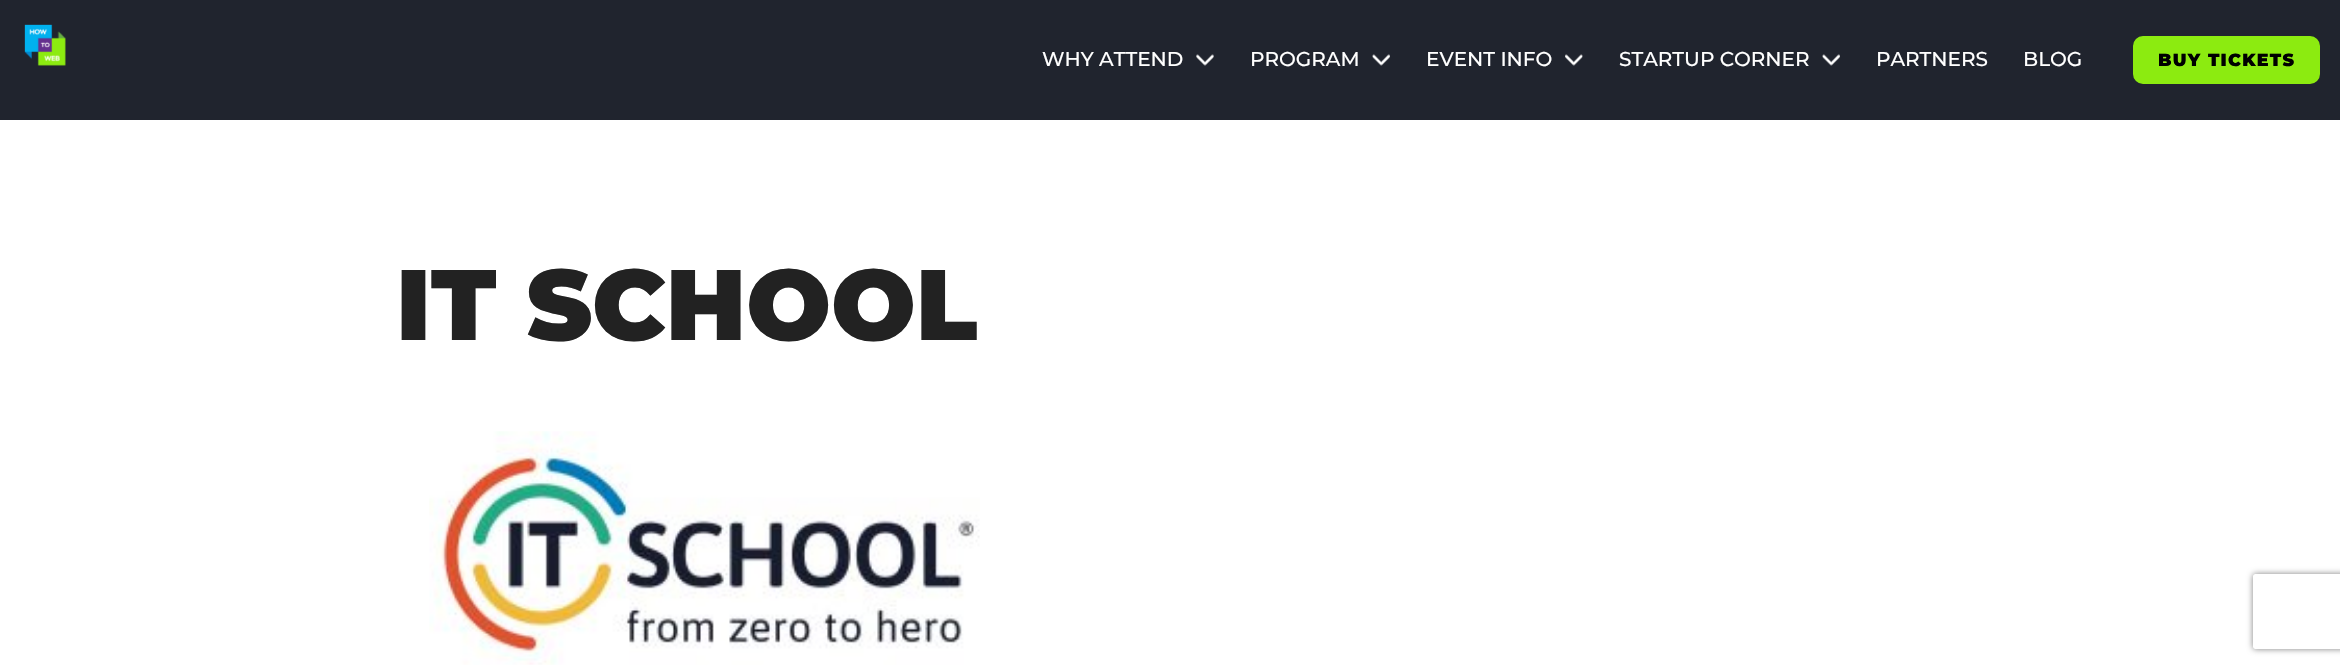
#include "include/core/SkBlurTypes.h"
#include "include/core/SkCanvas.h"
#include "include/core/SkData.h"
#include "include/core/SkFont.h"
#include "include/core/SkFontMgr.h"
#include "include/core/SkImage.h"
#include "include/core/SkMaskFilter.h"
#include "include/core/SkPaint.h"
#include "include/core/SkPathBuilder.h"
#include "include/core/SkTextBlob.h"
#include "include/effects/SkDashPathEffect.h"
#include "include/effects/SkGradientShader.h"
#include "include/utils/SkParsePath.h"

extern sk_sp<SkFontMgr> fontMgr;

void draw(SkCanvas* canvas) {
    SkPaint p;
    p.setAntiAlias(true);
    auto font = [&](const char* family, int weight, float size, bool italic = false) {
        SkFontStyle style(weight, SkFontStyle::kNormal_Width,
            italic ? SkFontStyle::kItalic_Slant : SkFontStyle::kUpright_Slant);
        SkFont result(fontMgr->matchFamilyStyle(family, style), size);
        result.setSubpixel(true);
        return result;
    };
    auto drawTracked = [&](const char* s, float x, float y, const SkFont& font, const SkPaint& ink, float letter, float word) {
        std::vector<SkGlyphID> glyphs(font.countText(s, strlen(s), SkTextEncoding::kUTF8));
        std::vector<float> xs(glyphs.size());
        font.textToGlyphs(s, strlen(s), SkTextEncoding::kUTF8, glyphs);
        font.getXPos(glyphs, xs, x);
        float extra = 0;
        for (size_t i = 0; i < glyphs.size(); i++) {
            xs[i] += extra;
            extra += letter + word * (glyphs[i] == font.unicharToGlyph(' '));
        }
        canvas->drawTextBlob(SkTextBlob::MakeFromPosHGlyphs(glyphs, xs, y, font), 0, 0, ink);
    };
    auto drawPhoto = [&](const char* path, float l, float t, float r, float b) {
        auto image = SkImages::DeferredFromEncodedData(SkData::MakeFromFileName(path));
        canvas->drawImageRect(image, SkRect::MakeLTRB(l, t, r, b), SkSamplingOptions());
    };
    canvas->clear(0xFFFFFFFF);
    p.setColor(0xFF20242E);
    canvas->drawRect(SkRect::MakeLTRB(0, 0, 2340, 120), p);
    drawPhoto("media/1.png", 24, 24, 66, 66);
    auto font1 = font("Montserrat", 500, 20);
    p.setColor(0xFFFFFFFF);
    canvas->drawString("WHY ATTEND", 1042, 66, font1, p);
    drawPhoto("media/2.png", 1196, 54, 1214, 66);
    canvas->drawString("PROGRAM", 1250, 66, font1, p);
    drawPhoto("media/3.png", 1372, 54, 1390, 66);
    canvas->drawString("EVENT INFO", 1426, 66, font1, p);
    drawPhoto("media/4.png", 1565, 54, 1583, 66);
    canvas->drawString("STARTUP CORNER", 1619, 66, font1, p);
    drawPhoto("media/3.png", 1822, 54, 1840, 66);
    canvas->drawString("PARTNERS", 1876, 66, font1, p);
    canvas->drawString("BLOG", 2023, 66, font1, p);
    p.setColor(0xFF8CEB10);
    canvas->drawRoundRect(SkRect::MakeLTRB(2135.5f, 38.5f, 2317.5f, 81.5f), 7.5f, 7.5f, p);
    p.setStyle(SkPaint::kStroke_Style);
    p.setStrokeWidth(5);
    canvas->drawRoundRect(SkRect::MakeLTRB(2135.5f, 38.5f, 2317.5f, 81.5f), 7.5f, 7.5f, p);
    auto font2 = font("Montserrat", 900, 17.5f);
    p.setStyle(SkPaint::kFill_Style);
    p.setColor(0xFF000000);
    drawTracked("BUY TICKETS", 2158, 66, font2, p, 1.25f, 0);
    auto font3 = font("Montserrat", 900, 100);
    p.setColor(0xFF222222);
    canvas->drawString("IT SCHOOL", 396, 340, font3, p);
    drawPhoto("media/5.png", 429, 431, 980, 665);
    canvas->save();
    canvas->clipPath(SkPathBuilder(SkPathFillType::kEvenOdd).moveTo(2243, 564).lineTo(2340, 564).lineTo(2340, 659).lineTo(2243, 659).close().moveTo(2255.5f, 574).lineTo(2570.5f, 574).cubicTo(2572, 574, 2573, 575, 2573, 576.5f).lineTo(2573, 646.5f).cubicTo(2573, 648, 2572, 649, 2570.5f, 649).lineTo(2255.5f, 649).cubicTo(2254, 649, 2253, 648, 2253, 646.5f).lineTo(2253, 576.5f).cubicTo(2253, 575, 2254, 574, 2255.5f, 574).close().detach(), true);
    p.setColor(0xFF808080);
    p.setMaskFilter(SkMaskFilter::MakeBlur(kNormal_SkBlurStyle, 3));
    canvas->drawRoundRect(SkRect::MakeLTRB(2253, 574, 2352, 649), 2.5f, 2.5f, p);
    p.setMaskFilter(nullptr);
    canvas->restore();
}
